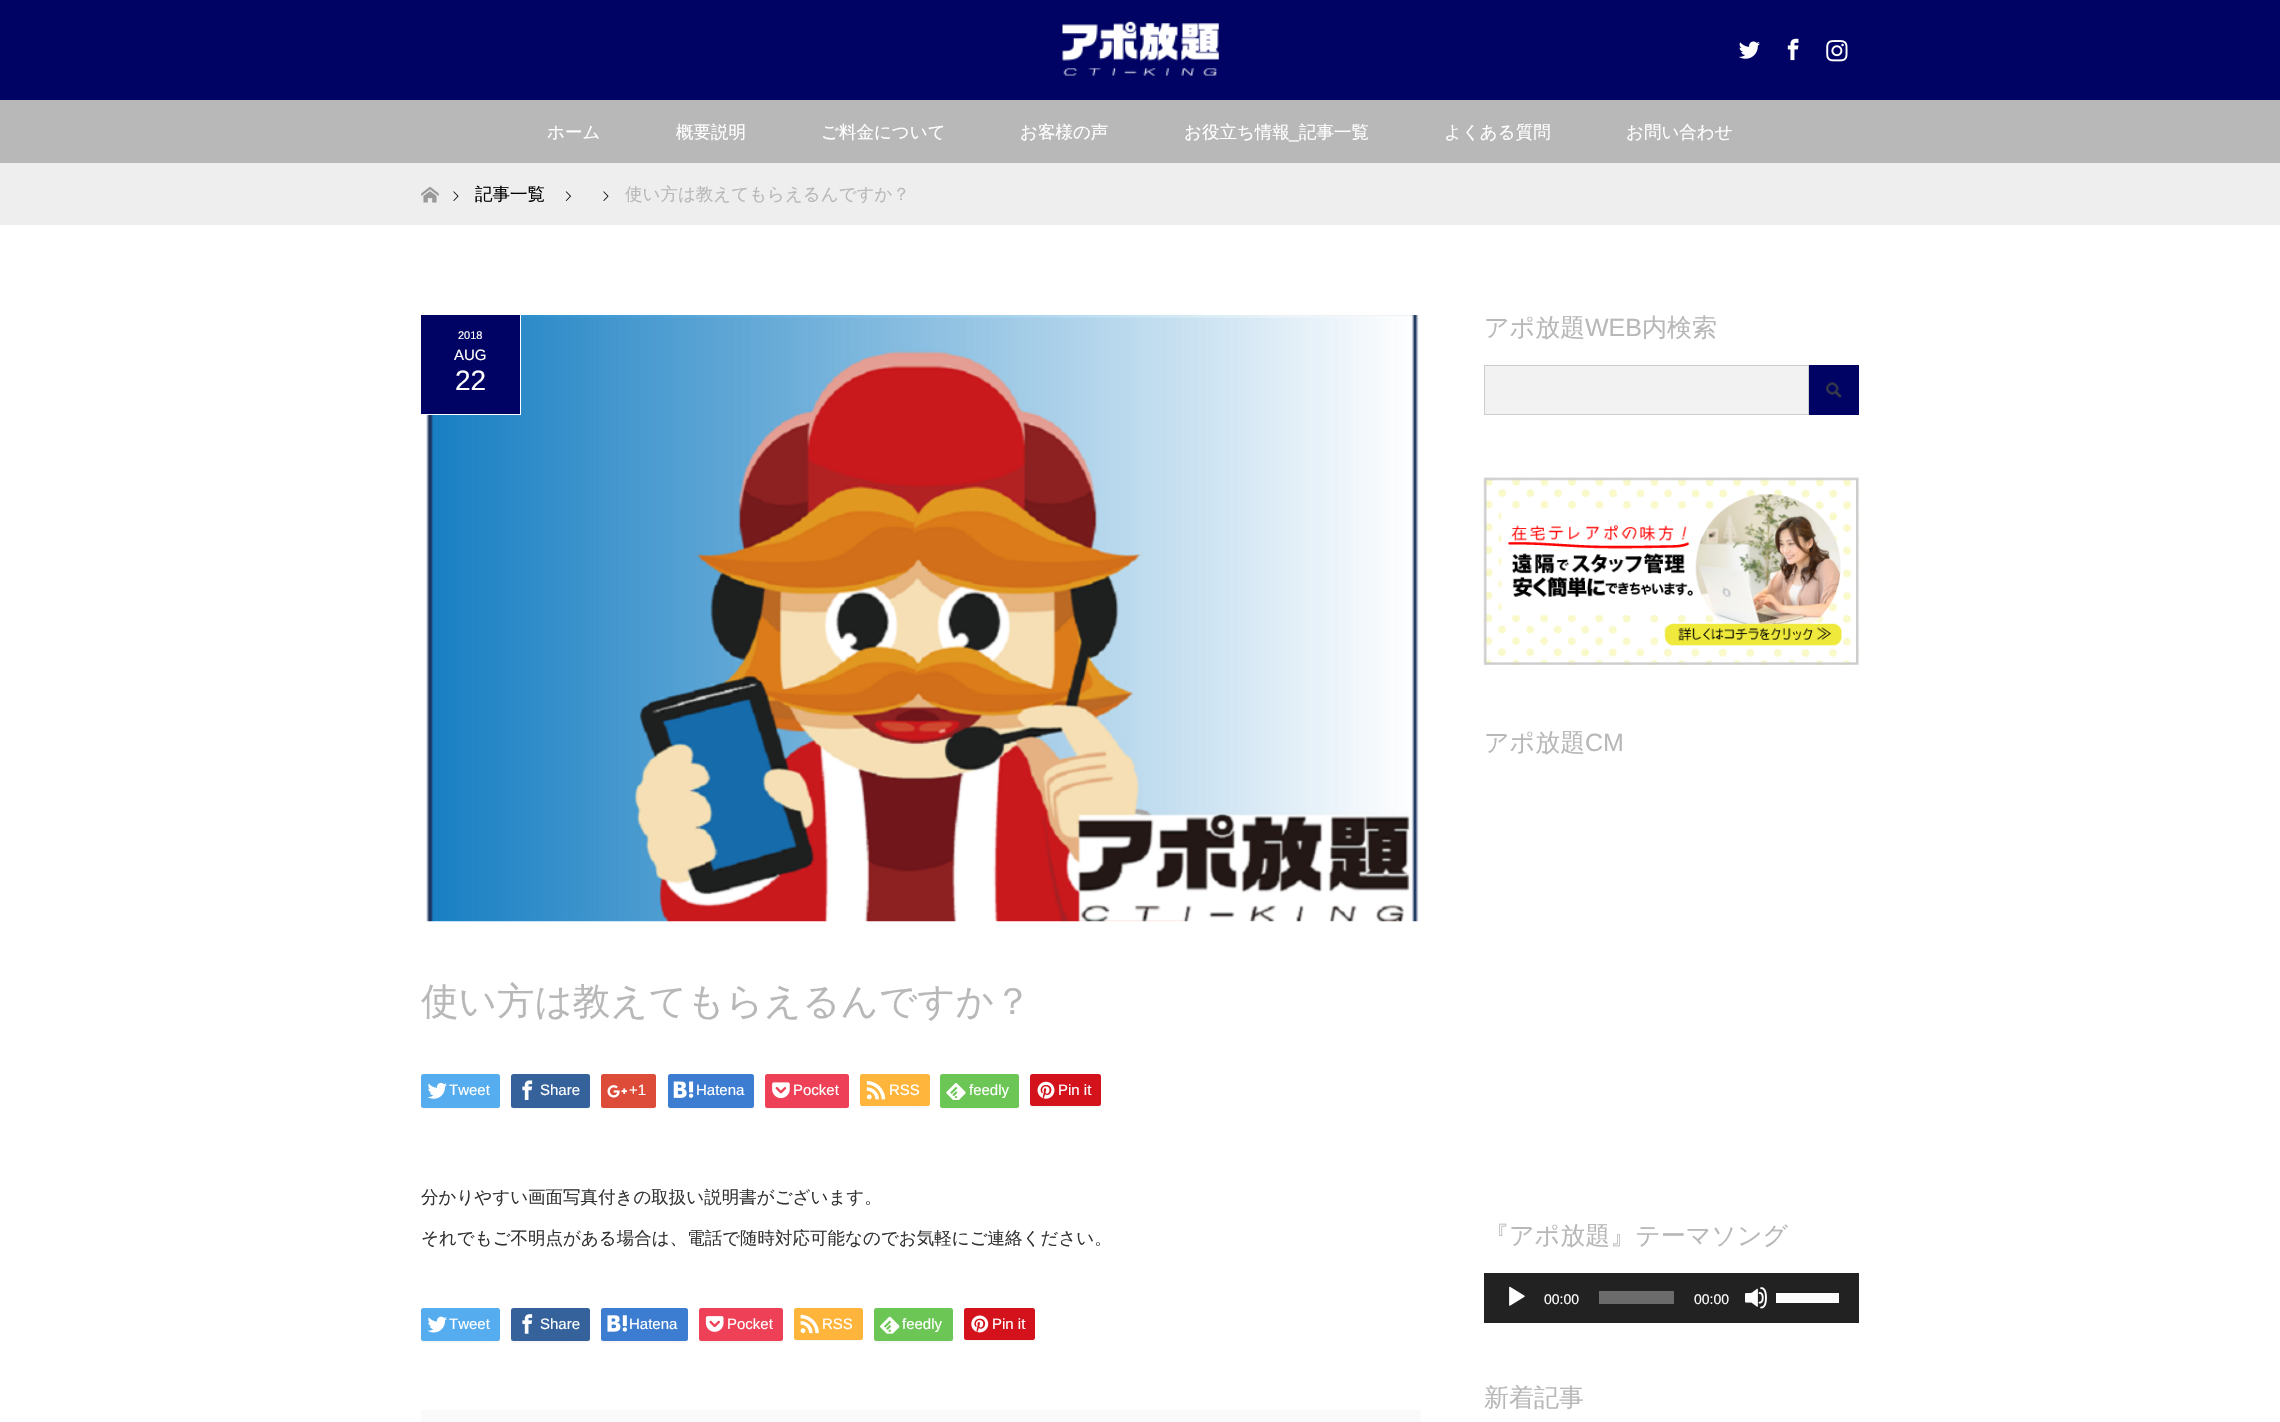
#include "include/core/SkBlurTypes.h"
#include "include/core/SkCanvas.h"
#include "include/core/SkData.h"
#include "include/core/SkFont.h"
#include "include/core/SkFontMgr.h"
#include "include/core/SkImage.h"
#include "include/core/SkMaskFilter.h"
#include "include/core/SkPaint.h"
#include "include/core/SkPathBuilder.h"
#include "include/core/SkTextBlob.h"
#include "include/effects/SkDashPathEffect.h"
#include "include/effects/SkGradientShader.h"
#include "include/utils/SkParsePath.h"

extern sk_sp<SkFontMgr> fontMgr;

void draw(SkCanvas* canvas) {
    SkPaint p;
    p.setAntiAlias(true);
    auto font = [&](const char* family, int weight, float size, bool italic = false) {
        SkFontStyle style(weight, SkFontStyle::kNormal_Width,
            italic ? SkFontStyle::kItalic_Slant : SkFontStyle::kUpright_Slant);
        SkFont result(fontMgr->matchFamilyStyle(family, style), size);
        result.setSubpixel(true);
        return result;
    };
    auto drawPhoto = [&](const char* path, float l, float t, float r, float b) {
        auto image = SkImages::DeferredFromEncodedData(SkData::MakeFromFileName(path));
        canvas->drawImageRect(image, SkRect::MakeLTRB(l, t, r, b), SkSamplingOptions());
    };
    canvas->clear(0xFFFFFFFF);
    p.setColor(0xFF000363);
    canvas->drawRect(SkRect::MakeLTRB(0, 0, 2280, 100), p);
    drawPhoto("media/1.png", 1062, 21, 1219, 76);
    drawPhoto("media/2.png", 1739, 41, 1760, 59);
    drawPhoto("media/3.png", 1787, 38, 1799, 61);
    drawPhoto("media/4.png", 1826, 40, 1848, 62);
    p.setColor(0xFFB8B8B8);
    canvas->drawRect(SkRect::MakeLTRB(0, 100, 2280, 163), p);
    auto font1 = font("WenQuanYi Zen Hei", 500, 17.5f);
    p.setColor(0xFFFFFFFF);
    {
        const struct { const char* s; float x, y; } items[] = {
            {"ホーム", 547, 138},
            {"概要説明", 676, 138},
            {"ご料金について", 821, 138},
            {"お客様の声", 1020, 138},
            {"お役立ち情報", 1184, 138},
        };
        for (auto [s, x, y] : items) {
            canvas->drawString(s, x, y, font1, p);
        }
    }
    auto font2 = font("Liberation Sans", 400, 17.5f);
    canvas->drawString("_", 1289, 138, font2, p);
    {
        const struct { const char* s; float x, y; } items[] = {
            {"記事一覧", 1299, 138},
            {"よくある質問", 1444, 138},
            {"お問い合わせ", 1626, 138},
        };
        for (auto [s, x, y] : items) {
            canvas->drawString(s, x, y, font1, p);
        }
    }
    p.setColor(0xFFEEEEEE);
    canvas->drawRect(SkRect::MakeLTRB(0, 163, 2280, 225), p);
    drawPhoto("media/5.png", 421, 186, 439, 203);
    drawPhoto("media/6.png", 453, 191, 459, 201);
    p.setColor(0xFF000000);
    canvas->drawString("記事一覧", 475, 200, font1, p);
    drawPhoto("media/7.png", 565, 191, 571, 201);
    drawPhoto("media/6.png", 603, 191, 609, 201);
    p.setColor(0xFFB8B8B8);
    canvas->drawString("使い方は教えてもらえるんですか？", 625, 200, font1, p);
    drawPhoto("media/8.png", 426, 315, 1419, 922);
    {
        const struct { float l, t, r, b; SkColor color; } items[] = {
            {421, 315, 520, 414, 0xFF000363},
            {520, 315, 521, 415, 0xFFFFFFFF},
            {421, 414, 521, 415, 0xFFFFFFFF},
        };
        for (auto [l, t, r, b, color] : items) {
            p.setColor(color);
            canvas->drawRect(SkRect::MakeLTRB(l, t, r, b), p);
        }
    }
    auto font3 = font("Liberation Sans", 400, 11);
    canvas->drawString("2018", 458, 339, font3, p);
    auto font4 = font("Liberation Sans", 400, 15);
    canvas->drawString("AUG", 454, 360, font4, p);
    auto font5 = font("Liberation Sans", 400, 28);
    canvas->drawString("22", 455, 390, font5, p);
    auto font6 = font("WenQuanYi Zen Hei", 500, 37.5f);
    p.setColor(0xFFB8B8B8);
    canvas->drawString("使い方は教えてもらえるんですか？", 421, 1014, font6, p);
    p.setColor(0xFFF7F7F7);
    canvas->drawPath(SkPathBuilder().moveTo(421, 1076).lineTo(421, 1102).cubicTo(421, 1103, 420, 1109, 424, 1109).lineTo(498, 1109).cubicTo(500, 1109, 500, 1107, 500, 1105).cubicTo(500, 1106, 499, 1108, 498, 1108).lineTo(424, 1108).cubicTo(422, 1108, 421, 1106, 421, 1105).close().detach(), p);
    p.setColor(0xFF55ACEE);
    canvas->drawRoundRect(SkRect::MakeLTRB(421, 1074, 500, 1108), 2.5f, 2.5f, p);
    drawPhoto("media/9.png", 427, 1082, 447, 1099);
    p.setColor(0xFFFFFFFF);
    canvas->drawString("Tweet", 449, 1095, font4, p);
    p.setColor(0xFFF7F7F7);
    canvas->drawPath(SkPathBuilder().moveTo(511, 1076).lineTo(511, 1102).cubicTo(511, 1103, 510, 1109, 514, 1109).lineTo(588, 1109).cubicTo(590, 1109, 590, 1107, 590, 1105).cubicTo(590, 1106, 589, 1108, 588, 1108).lineTo(514, 1108).cubicTo(512, 1108, 511, 1106, 511, 1105).close().detach(), p);
    p.setColor(0xFF35629A);
    canvas->drawRoundRect(SkRect::MakeLTRB(511, 1074, 590, 1108), 2.5f, 2.5f, p);
    drawPhoto("media/10.png", 522, 1080, 533, 1100);
    p.setColor(0xFFFFFFFF);
    canvas->drawString("Share", 540, 1095, font4, p);
    p.setColor(0xFFF7F7F7);
    canvas->drawPath(SkPathBuilder().moveTo(601, 1076).lineTo(601, 1097).cubicTo(601, 1110, 599, 1109, 612, 1109).lineTo(645, 1109).cubicTo(647, 1109, 656, 1111, 656, 1106).cubicTo(656, 1107, 655, 1108, 654, 1108).lineTo(604, 1108).cubicTo(602, 1108, 601, 1106, 601, 1105).close().detach(), p);
    p.setColor(0xFFDD4B39);
    canvas->drawRoundRect(SkRect::MakeLTRB(601, 1074, 656, 1108), 2.5f, 2.5f, p);
    drawPhoto("media/11.png", 607, 1085, 627, 1098);
    p.setColor(0xFFFFFFFF);
    canvas->drawString("+1", 629, 1095, font4, p);
    p.setColor(0xFFF7F7F7);
    canvas->drawPath(SkPathBuilder().moveTo(668, 1106).cubicTo(668, 1111, 679, 1109, 684, 1109).lineTo(738, 1109).cubicTo(756, 1109, 754, 1112, 754, 1097).lineTo(754, 1076).lineTo(754, 1105).cubicTo(754, 1106, 753, 1108, 751, 1108).lineTo(670, 1108).cubicTo(669, 1108, 668, 1107, 668, 1106).close().detach(), p);
    p.setColor(0xFF3C7DD1);
    canvas->drawRoundRect(SkRect::MakeLTRB(668, 1074, 754, 1108), 2.5f, 2.5f, p);
    drawPhoto("media/12.png", 673, 1081, 694, 1098);
    p.setColor(0xFFFFFFFF);
    canvas->drawString("Hatena", 696, 1095, font4, p);
    p.setColor(0xFFF7F7F7);
    canvas->drawPath(SkPathBuilder().moveTo(765, 1105).cubicTo(765, 1107, 765, 1109, 767, 1109).lineTo(846, 1109).cubicTo(850, 1109, 849, 1103, 849, 1102).lineTo(849, 1076).lineTo(849, 1105).cubicTo(849, 1106, 848, 1108, 846, 1108).lineTo(768, 1108).cubicTo(766, 1108, 765, 1106, 765, 1105).close().detach(), p);
    p.setColor(0xFFEE4056);
    canvas->drawRoundRect(SkRect::MakeLTRB(765, 1074, 849, 1108), 2.5f, 2.5f, p);
    drawPhoto("media/13.png", 772, 1082, 790, 1099);
    p.setColor(0xFFFFFFFF);
    canvas->drawString("Pocket", 793, 1095, font4, p);
    p.setColor(0xFFF7F7F7);
    canvas->drawPath(SkPathBuilder().moveTo(860, 1104).cubicTo(860, 1111, 867, 1108, 873, 1108).lineTo(917, 1108).cubicTo(923, 1108, 930, 1111, 930, 1104).cubicTo(930, 1105, 929, 1106, 928, 1106).lineTo(862, 1106).cubicTo(861, 1106, 860, 1105, 860, 1104).close().detach(), p);
    p.setColor(0xFFFFB53C);
    canvas->drawRoundRect(SkRect::MakeLTRB(860, 1074, 930, 1106), 2.5f, 2.5f, p);
    drawPhoto("media/14.png", 866, 1081, 886, 1100);
    p.setColor(0xFFFFFFFF);
    canvas->drawString("RSS", 889, 1095, font4, p);
    p.setColor(0xFFF7F7F7);
    canvas->drawPath(SkPathBuilder().moveTo(940, 1105).cubicTo(940, 1107, 940, 1109, 942, 1109).lineTo(1016, 1109).cubicTo(1020, 1109, 1019, 1103, 1019, 1102).lineTo(1019, 1076).lineTo(1019, 1105).cubicTo(1019, 1106, 1018, 1108, 1016, 1108).lineTo(942, 1108).cubicTo(941, 1108, 940, 1106, 940, 1105).close().detach(), p);
    p.setColor(0xFF6CC655);
    canvas->drawRoundRect(SkRect::MakeLTRB(940, 1074, 1019, 1108), 2.5f, 2.5f, p);
    drawPhoto("media/15.png", 946, 1083, 966, 1100);
    p.setColor(0xFFFFFFFF);
    canvas->drawString("feedly", 969, 1095, font4, p);
    p.setColor(0xFFF7F7F7);
    canvas->drawPath(SkPathBuilder().moveTo(1030, 1104).cubicTo(1030, 1111, 1037, 1108, 1044, 1108).lineTo(1099, 1108).cubicTo(1101, 1108, 1101, 1106, 1101, 1105).lineTo(1099, 1106).lineTo(1032, 1106).lineTo(1031, 1106).close().detach(), p);
    p.setColor(0xFFD4121C);
    canvas->drawRoundRect(SkRect::MakeLTRB(1030, 1074, 1101, 1106), 2.5f, 2.5f, p);
    drawPhoto("media/16.png", 1037, 1081, 1055, 1099);
    p.setColor(0xFFFFFFFF);
    canvas->drawString("Pin it", 1058, 1095, font4, p);
    p.setColor(0xFF333333);
    canvas->drawString("分かりやすい画面写真付きの取扱い説明書がございます。", 421, 1203, font1, p);
    canvas->drawString("それでもご不明点がある場合は、電話で随時対応可能なのでお気軽にご連絡ください。", 421, 1244, font1, p);
    p.setColor(0xFFF7F7F7);
    canvas->drawPath(SkPathBuilder().moveTo(421, 1310).lineTo(421, 1331).cubicTo(421, 1346, 419, 1343, 436, 1343).lineTo(473, 1343).cubicTo(476, 1343, 497, 1344, 499, 1342).cubicTo(500, 1341, 500, 1340, 500, 1339).cubicTo(500, 1340, 499, 1341, 498, 1341).lineTo(424, 1341).cubicTo(422, 1341, 421, 1340, 421, 1339).close().detach(), p);
    p.setColor(0xFF55ACEE);
    canvas->drawRoundRect(SkRect::MakeLTRB(421, 1308, 500, 1341), 2.5f, 2.5f, p);
    drawPhoto("media/17.png", 427, 1316, 447, 1333);
    p.setColor(0xFFFFFFFF);
    canvas->drawString("Tweet", 449, 1329, font4, p);
    p.setColor(0xFFF7F7F7);
    canvas->drawPath(SkPathBuilder().moveTo(511, 1310).lineTo(511, 1331).cubicTo(511, 1346, 509, 1343, 526, 1343).lineTo(563, 1343).cubicTo(566, 1343, 587, 1344, 589, 1342).cubicTo(590, 1341, 590, 1340, 590, 1339).cubicTo(590, 1340, 589, 1341, 588, 1341).lineTo(514, 1341).cubicTo(512, 1341, 511, 1340, 511, 1339).close().detach(), p);
    p.setColor(0xFF35629A);
    canvas->drawRoundRect(SkRect::MakeLTRB(511, 1308, 590, 1341), 2.5f, 2.5f, p);
    drawPhoto("media/18.png", 522, 1314, 533, 1334);
    p.setColor(0xFFFFFFFF);
    canvas->drawString("Share", 540, 1329, font4, p);
    p.setColor(0xFFF7F7F7);
    canvas->drawPath(SkPathBuilder().moveTo(601, 1310).lineTo(601, 1331).cubicTo(601, 1346, 599, 1343, 617, 1343).lineTo(672, 1343).cubicTo(692, 1343, 688, 1346, 688, 1326).cubicTo(688, 1323, 689, 1312, 688, 1310).lineTo(688, 1339).cubicTo(688, 1340, 686, 1341, 685, 1341).lineTo(604, 1341).cubicTo(602, 1341, 601, 1340, 601, 1339).close().detach(), p);
    p.setColor(0xFF3C7DD1);
    canvas->drawRoundRect(SkRect::MakeLTRB(601, 1308, 688, 1341), 2.5f, 2.5f, p);
    drawPhoto("media/19.png", 607, 1315, 627, 1332);
    p.setColor(0xFFFFFFFF);
    canvas->drawString("Hatena", 629, 1329, font4, p);
    p.setColor(0xFFF7F7F7);
    canvas->drawPath(SkPathBuilder().moveTo(699, 1340).cubicTo(699, 1342, 700, 1343, 702, 1343).lineTo(780, 1343).cubicTo(782, 1343, 783, 1342, 783, 1340).lineTo(783, 1312).lineTo(782, 1310).lineTo(782, 1339).cubicTo(782, 1340, 781, 1341, 780, 1341).lineTo(701, 1341).cubicTo(700, 1341, 699, 1341, 699, 1340).close().detach(), p);
    p.setColor(0xFFEE4056);
    canvas->drawRoundRect(SkRect::MakeLTRB(699, 1308, 783, 1341), 2.5f, 2.5f, p);
    drawPhoto("media/20.png", 705, 1316, 724, 1332);
    p.setColor(0xFFFFFFFF);
    canvas->drawString("Pocket", 727, 1329, font4, p);
    p.setColor(0xFFF7F7F7);
    canvas->drawPath(SkPathBuilder().moveTo(794, 1339).cubicTo(794, 1340, 795, 1341, 796, 1341).lineTo(860, 1341).cubicTo(862, 1341, 863, 1340, 863, 1338).lineTo(863, 1312).lineTo(862, 1310).lineTo(862, 1338).cubicTo(862, 1339, 861, 1340, 860, 1340).lineTo(796, 1340).cubicTo(795, 1340, 794, 1339, 794, 1339).close().detach(), p);
    p.setColor(0xFFFFB53C);
    canvas->drawRoundRect(SkRect::MakeLTRB(794, 1308, 863, 1340), 2.5f, 2.5f, p);
    drawPhoto("media/21.png", 800, 1314, 819, 1334);
    p.setColor(0xFFFFFFFF);
    canvas->drawString("RSS", 822, 1329, font4, p);
    p.setColor(0xFFF7F7F7);
    canvas->drawPath(SkPathBuilder().moveTo(874, 1340).cubicTo(874, 1346, 887, 1343, 889, 1343).lineTo(938, 1343).cubicTo(957, 1343, 953, 1345, 953, 1326).cubicTo(953, 1323, 954, 1312, 952, 1310).lineTo(952, 1339).cubicTo(952, 1340, 951, 1341, 950, 1341).lineTo(876, 1341).cubicTo(875, 1341, 874, 1341, 874, 1340).close().detach(), p);
    p.setColor(0xFF6CC655);
    canvas->drawRoundRect(SkRect::MakeLTRB(874, 1308, 953, 1341), 2.5f, 2.5f, p);
    drawPhoto("media/22.png", 880, 1316, 900, 1334);
    p.setColor(0xFFFFFFFF);
    canvas->drawString("feedly", 902, 1329, font4, p);
    p.setColor(0xFFF7F7F7);
    canvas->drawPath(SkPathBuilder().moveTo(964, 1339).cubicTo(964, 1340, 965, 1341, 966, 1341).lineTo(1032, 1341).cubicTo(1034, 1341, 1035, 1340, 1035, 1338).lineTo(1034, 1339).lineTo(1032, 1340).lineTo(966, 1340).close().detach(), p);
    p.setColor(0xFFD4121C);
    canvas->drawRoundRect(SkRect::MakeLTRB(964, 1308, 1035, 1340), 2.5f, 2.5f, p);
    drawPhoto("media/23.png", 971, 1315, 989, 1333);
    p.setColor(0xFFFFFFFF);
    canvas->drawString("Pin it", 992, 1329, font4, p);
    p.setColor(0xFFFAFAFA);
    canvas->drawRect(SkRect::MakeLTRB(421, 1410, 1421, 1422), p);
    auto font7 = font("WenQuanYi Zen Hei", 500, 25);
    p.setColor(0xFFB8B8B8);
    canvas->drawString("アポ放題", 1484, 336, font7, p);
    auto font8 = font("Liberation Sans", 400, 25);
    canvas->drawString("WEB", 1585, 336, font8, p);
    canvas->drawString("内検索", 1642, 336, font7, p);
    p.setColor(0xFFF2F2F2);
    canvas->drawRect(SkRect::MakeLTRB(1484.5f, 365.5f, 1808.5f, 414.5f), p);
    p.setStyle(SkPaint::kStroke_Style);
    p.setStrokeWidth(1);
    p.setColor(0xFFCCCCCC);
    canvas->drawRect(SkRect::MakeLTRB(1484.5f, 365.5f, 1808.5f, 414.5f), p);
    p.setStyle(SkPaint::kFill_Style);
    p.setColor(0xFF000363);
    canvas->drawRect(SkRect::MakeLTRB(1809, 365, 1859, 415), p);
    drawPhoto("media/24.png", 1826, 382, 1842, 398);
    drawPhoto("media/25.png", 1483, 477, 1859, 665);
    p.setColor(0xFFB8B8B8);
    canvas->drawString("アポ放題", 1484, 751, font7, p);
    canvas->drawString("CM", 1585, 751, font8, p);
    canvas->drawString("『アポ放題』テーマソング", 1484, 1244, font7, p);
    p.setColor(0xFF222222);
    canvas->drawRect(SkRect::MakeLTRB(1484, 1273, 1859, 1323), p);
    drawPhoto("media/26.png", 1509, 1286, 1525, 1306);
    auto font9 = font("Liberation Sans", 400, 14);
    p.setColor(0xFFFFFFFF);
    canvas->drawString("00:00", 1544, 1304, font9, p);
    p.setColor(0xFF6B6B6B);
    canvas->drawRect(SkRect::MakeLTRB(1599, 1291, 1674, 1304), p);
    p.setColor(0xFFFFFFFF);
    canvas->drawString("00:00", 1694, 1304, font9, p);
    drawPhoto("media/27.png", 1745, 1287, 1767, 1309);
    canvas->drawRect(SkRect::MakeLTRB(1776, 1293, 1839, 1303), p);
    p.setColor(0xFFB8B8B8);
    canvas->drawString("新着記事", 1484, 1406, font7, p);
}
